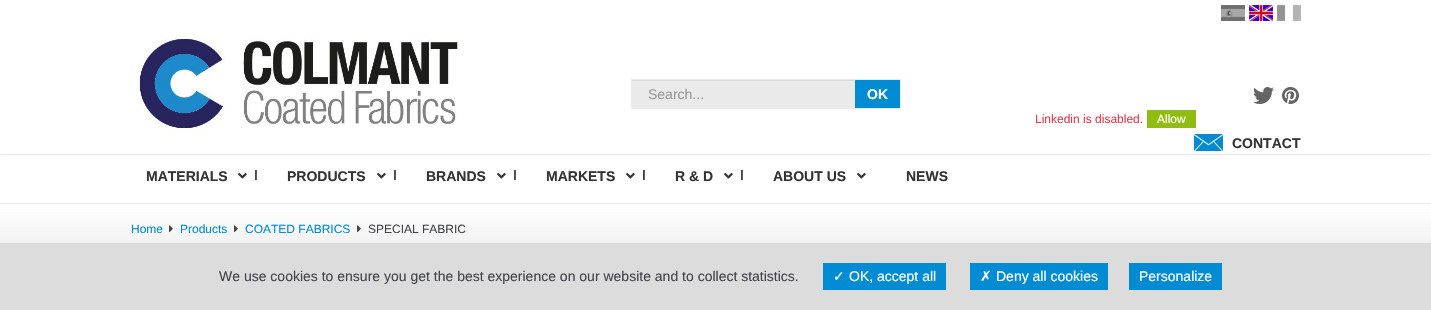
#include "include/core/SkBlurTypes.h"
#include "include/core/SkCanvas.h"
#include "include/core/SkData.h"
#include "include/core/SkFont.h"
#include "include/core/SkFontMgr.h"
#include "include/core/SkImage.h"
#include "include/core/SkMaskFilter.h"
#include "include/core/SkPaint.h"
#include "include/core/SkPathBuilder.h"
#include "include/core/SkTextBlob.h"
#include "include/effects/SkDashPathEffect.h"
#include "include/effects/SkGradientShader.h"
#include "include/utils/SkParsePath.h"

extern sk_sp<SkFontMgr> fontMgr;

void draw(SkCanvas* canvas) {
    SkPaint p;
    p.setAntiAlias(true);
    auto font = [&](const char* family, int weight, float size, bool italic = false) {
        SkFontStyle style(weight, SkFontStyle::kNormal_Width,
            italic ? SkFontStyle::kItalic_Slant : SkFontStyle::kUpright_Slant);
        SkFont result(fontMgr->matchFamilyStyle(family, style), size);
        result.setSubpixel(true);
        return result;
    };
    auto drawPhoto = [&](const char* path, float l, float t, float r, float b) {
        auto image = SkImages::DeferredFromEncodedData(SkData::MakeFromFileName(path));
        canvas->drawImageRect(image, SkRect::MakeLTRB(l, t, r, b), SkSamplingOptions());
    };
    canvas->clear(0xFFFFFFFF);
    drawPhoto("media/1.png", 1221, 5, 1245, 21);
    drawPhoto("media/2.png", 1249, 5, 1273, 21);
    drawPhoto("media/3.png", 1277, 5, 1301, 21);
    drawPhoto("media/4.png", 139, 34, 459, 133);
    p.setColor(0xFFEAEAEA);
    canvas->drawRect(SkRect::MakeLTRB(631, 79, 854, 109), p);
    p.setColor(0xFFD8D8D8);
    canvas->drawRect(SkRect::MakeLTRB(632, 80, 854, 81), p);
    auto font1 = font("Liberation Sans", 400, 14);
    p.setColor(0xFF999999);
    canvas->drawString("Search...", 648, 99, font1, p);
    p.setColor(0xFF008BD2);
    canvas->drawRect(SkRect::MakeLTRB(854.5f, 79.5f, 900.5f, 108.5f), p);
    p.setStyle(SkPaint::kStroke_Style);
    p.setStrokeWidth(1);
    p.setColor(0xFFEAEAEA);
    canvas->drawRect(SkRect::MakeLTRB(854.5f, 79.5f, 900.5f, 108.5f), p);
    auto font2 = font("Liberation Sans", 700, 14);
    p.setStyle(SkPaint::kFill_Style);
    p.setColor(0xFFFFFFFF);
    canvas->drawString("OK", 867, 99, font2, p);
    drawPhoto("media/5.png", 1253, 87, 1274, 104);
    drawPhoto("media/6.png", 1282, 87, 1299, 104);
    auto font3 = font("Liberation Sans", 400, 12);
    p.setColor(0xFFE5384C);
    canvas->drawString("Linkedin is disabled.", 1035, 123, font3, p);
    p.setColor(0xFF91BD12);
    canvas->drawRect(SkRect::MakeLTRB(1147, 110, 1196, 128), p);
    p.setColor(0xFFFFFFFF);
    canvas->drawString("Allow", 1157, 123, font3, p);
    drawPhoto("media/7.png", 1194, 134, 1223, 151);
    p.setColor(0xFF333333);
    canvas->drawString("CONTACT", 1232, 148, font2, p);
    p.setColor(0xFFEAEAEA);
    canvas->drawPath(SkPathBuilder().moveTo(0, 154).lineTo(1431, 154).lineTo(1430, 155).lineTo(1, 155).close().detach(), p);
    canvas->drawPath(SkPathBuilder().moveTo(1431, 204).lineTo(0, 204).lineTo(1, 203).lineTo(1430, 203).close().detach(), p);
    drawPhoto("media/8.png", 255, 170, 257, 180);
    p.setColor(0xFF333333);
    canvas->drawString("MATERIALS", 146, 181, font2, p);
    drawPhoto("media/9.png", 238, 173, 247, 179);
    drawPhoto("media/8.png", 394, 170, 396, 180);
    canvas->drawString("PRODUCTS", 287, 181, font2, p);
    drawPhoto("media/9.png", 377, 173, 386, 179);
    drawPhoto("media/8.png", 514, 170, 516, 180);
    canvas->drawString("BRANDS", 426, 181, font2, p);
    drawPhoto("media/9.png", 497, 173, 506, 179);
    drawPhoto("media/8.png", 643, 170, 645, 180);
    canvas->drawString("MARKETS", 546, 181, font2, p);
    drawPhoto("media/9.png", 626, 173, 635, 179);
    drawPhoto("media/8.png", 741, 170, 743, 180);
    canvas->drawString("R & D", 675, 181, font2, p);
    drawPhoto("media/9.png", 724, 173, 733, 179);
    canvas->drawString("ABOUT US", 773, 181, font2, p);
    drawPhoto("media/9.png", 857, 173, 866, 179);
    canvas->drawString("NEWS", 906, 181, font2, p);
    {
        const SkColor colors[] = {0xFFFFFFFF, 0xFFEFEFEF};
        const float stops[] = {0, 1};
        const SkPoint ends[] = {{716, 204}, {716, 254}};
        p.setShader(SkGradientShader::MakeLinear(ends, colors, stops, 2, SkTileMode::kClamp));
        p.setAlpha(255);
    }
    canvas->drawRect(SkRect::MakeLTRB(0, 212, 1431, 243), p);
    p.setShader(nullptr);
    p.setColor(0xFF008BD2);
    canvas->drawString("Home", 131, 233, font3, p);
    drawPhoto("media/10.png", 169, 225, 173, 233);
    canvas->drawString("Products", 180, 233, font3, p);
    drawPhoto("media/10.png", 234, 225, 238, 233);
    canvas->drawString("COATED FABRICS", 245, 233, font3, p);
    drawPhoto("media/10.png", 357, 225, 361, 233);
    p.setColor(0xFF42444D);
    canvas->drawString("SPECIAL FABRIC", 368, 233, font3, p);
    p.setColor(0xFFDCDCDC);
    canvas->drawRect(SkRect::MakeLTRB(0, 243, 1431, 310), p);
    p.setColor(0xFF42444D);
    canvas->drawString("We use cookies to ensure you get the best experience on our website and to collect statistics.", 219, 281, font1, p);
    p.setColor(0xFF008BD2);
    canvas->drawRect(SkRect::MakeLTRB(823, 263, 946, 290), p);
    auto font4 = font("DejaVu Sans", 400, 14);
    p.setColor(0xFFFFFFFF);
    canvas->drawString("✓", 833, 281, font4, p);
    canvas->drawString("OK, accept all", 849, 281, font1, p);
    p.setColor(0xFF008BD2);
    canvas->drawRect(SkRect::MakeLTRB(970, 263, 1108, 290), p);
    p.setColor(0xFFFFFFFF);
    canvas->drawString("✗", 980, 281, font4, p);
    canvas->drawString("Deny all cookies", 996, 281, font1, p);
    p.setColor(0xFF008BD2);
    canvas->drawRect(SkRect::MakeLTRB(1129, 263, 1222, 290), p);
    p.setColor(0xFFFFFFFF);
    canvas->drawString("Personalize", 1139, 281, font1, p);
}
